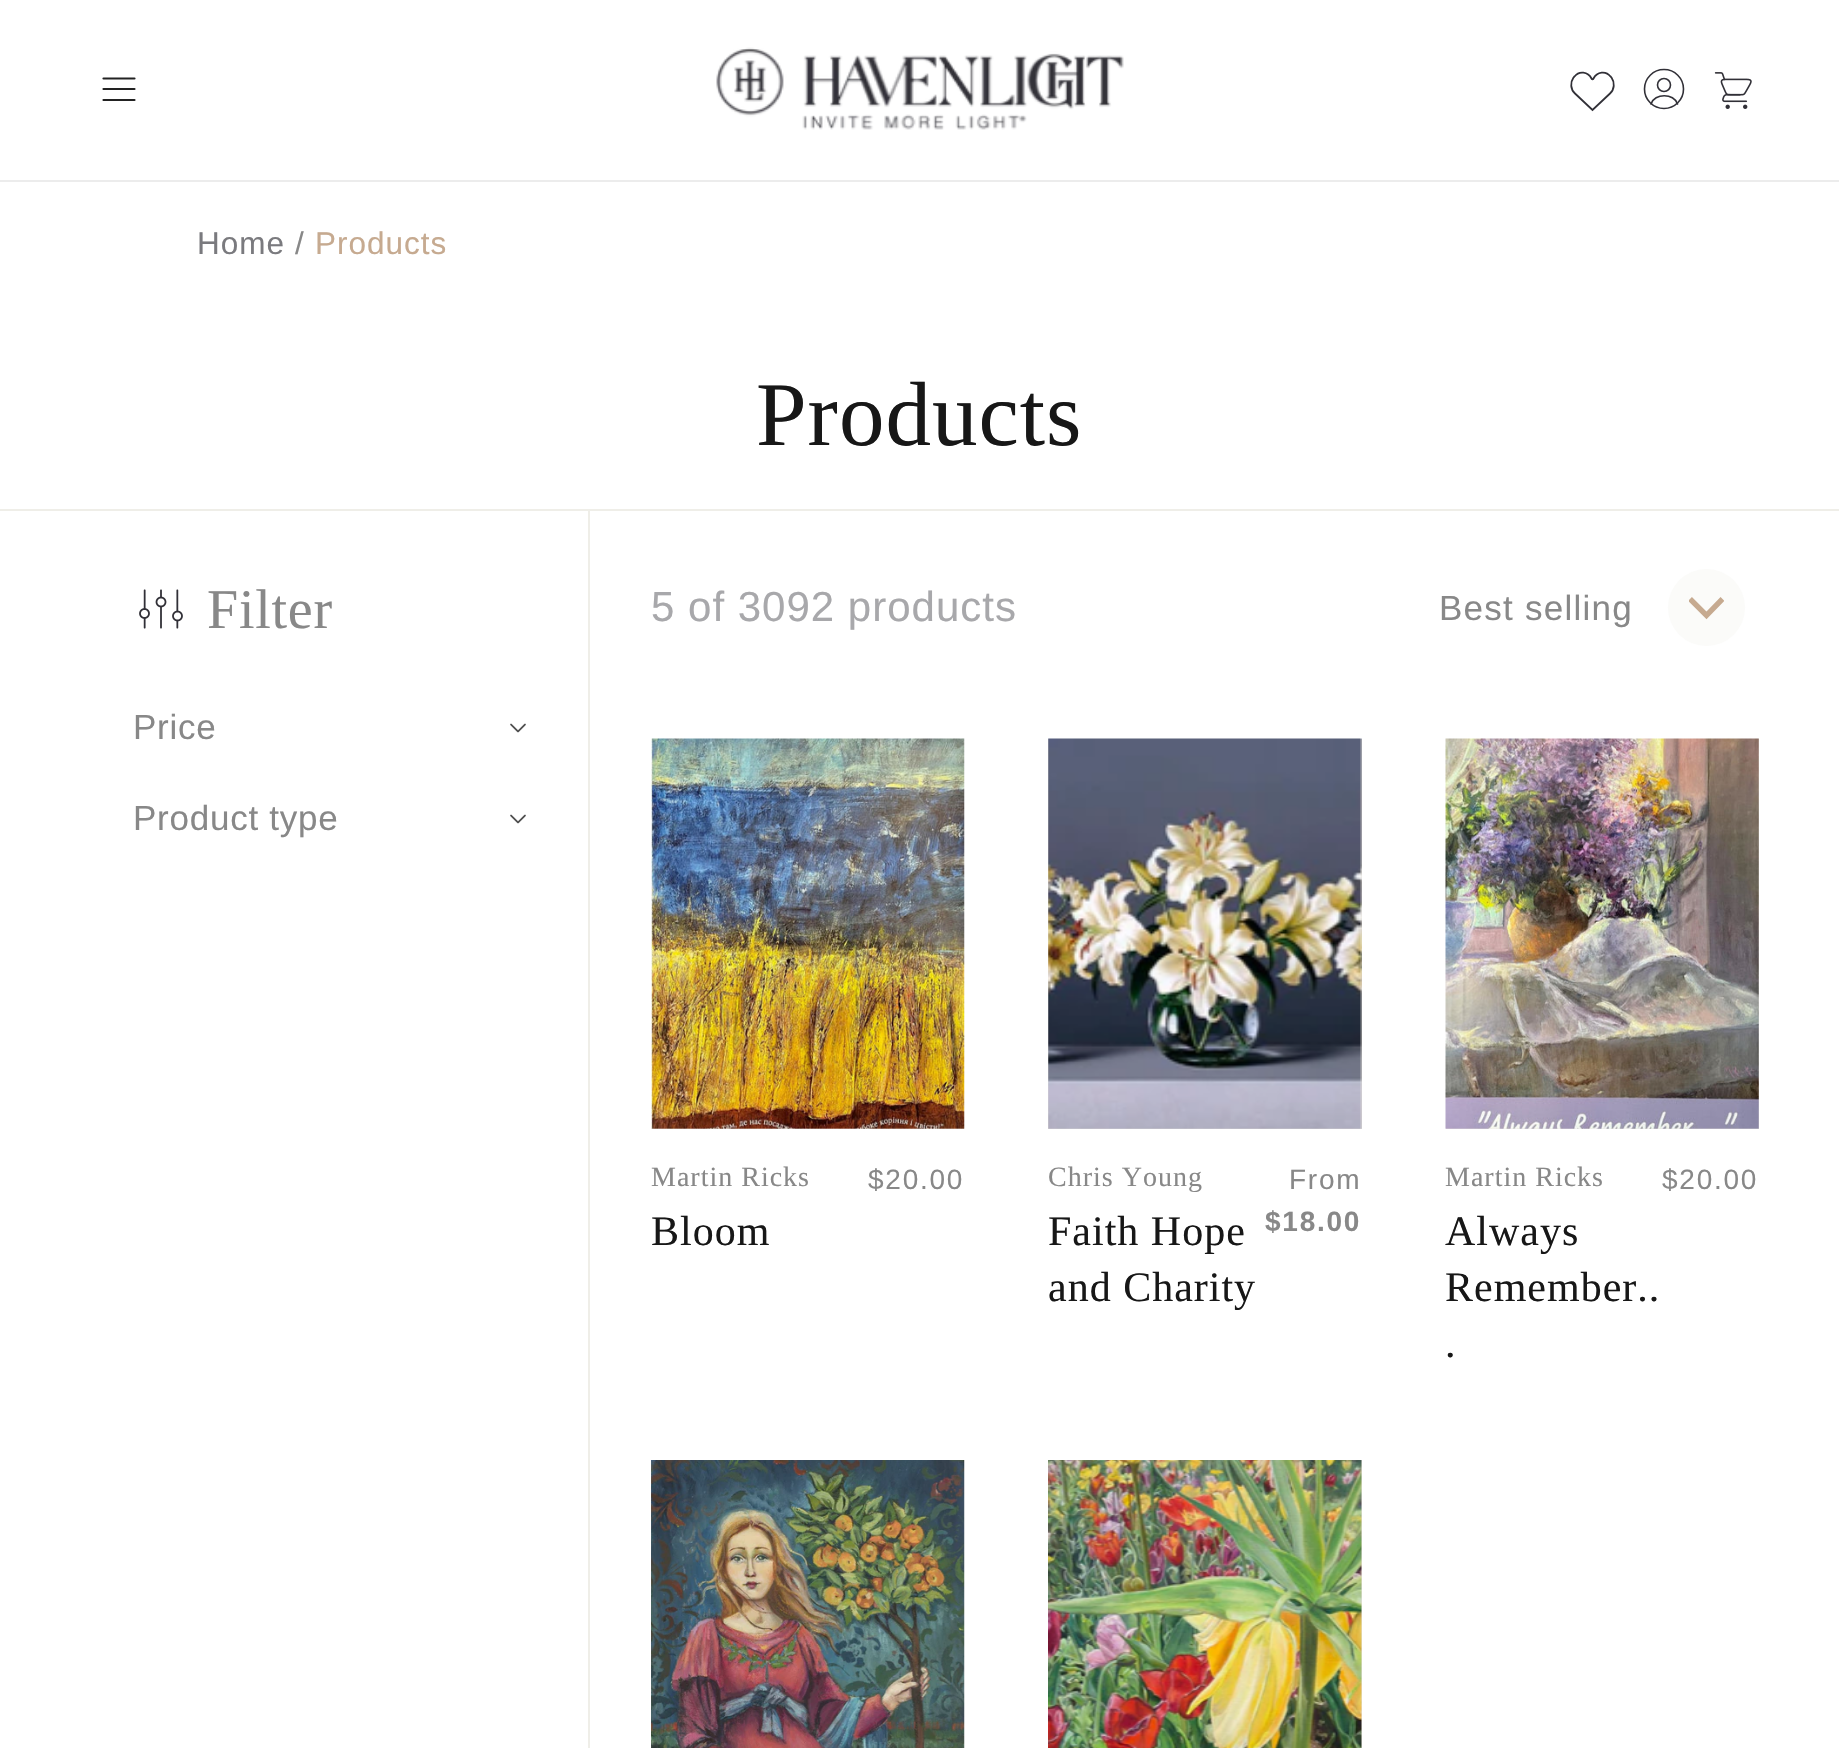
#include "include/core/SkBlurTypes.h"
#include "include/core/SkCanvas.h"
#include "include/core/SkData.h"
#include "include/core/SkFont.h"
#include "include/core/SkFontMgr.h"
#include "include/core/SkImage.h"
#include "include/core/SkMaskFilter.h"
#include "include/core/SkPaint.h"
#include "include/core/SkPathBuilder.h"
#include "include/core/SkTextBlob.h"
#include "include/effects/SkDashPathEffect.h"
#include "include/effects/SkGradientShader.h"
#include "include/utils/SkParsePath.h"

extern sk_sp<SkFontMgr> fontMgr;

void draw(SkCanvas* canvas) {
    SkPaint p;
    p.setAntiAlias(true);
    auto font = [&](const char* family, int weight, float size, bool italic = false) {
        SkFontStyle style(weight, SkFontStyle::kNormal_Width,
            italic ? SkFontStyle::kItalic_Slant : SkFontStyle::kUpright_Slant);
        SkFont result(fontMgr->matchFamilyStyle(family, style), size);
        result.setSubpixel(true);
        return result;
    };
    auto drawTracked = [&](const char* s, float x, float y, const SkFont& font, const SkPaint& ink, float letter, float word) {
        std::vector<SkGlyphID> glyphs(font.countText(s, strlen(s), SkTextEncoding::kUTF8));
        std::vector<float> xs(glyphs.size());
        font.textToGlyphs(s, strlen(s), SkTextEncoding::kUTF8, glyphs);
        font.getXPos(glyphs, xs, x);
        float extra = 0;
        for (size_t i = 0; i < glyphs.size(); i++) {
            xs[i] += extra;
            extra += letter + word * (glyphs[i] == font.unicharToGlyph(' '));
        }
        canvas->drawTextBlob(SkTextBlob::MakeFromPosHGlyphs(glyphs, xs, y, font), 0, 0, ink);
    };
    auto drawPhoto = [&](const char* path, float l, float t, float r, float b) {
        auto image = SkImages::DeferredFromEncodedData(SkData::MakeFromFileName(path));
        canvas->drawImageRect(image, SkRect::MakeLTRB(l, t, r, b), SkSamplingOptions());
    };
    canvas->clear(0xFFFFFFFF);
    p.setColor(0xFFECECEC);
    canvas->drawRect(SkRect::MakeLTRB(0, 180, 1839, 182), p);
    p.setStyle(SkPaint::kStroke_Style);
    p.setStrokeWidth(2.2f);
    p.setStrokeCap(SkPaint::kRound_Cap);
    p.setColor(0xFF222222);
    canvas->drawPath(SkPathBuilder().moveTo(103.5f, 78.5f).lineTo(134.5f, 78.5f).moveTo(103.5f, 89).lineTo(134.5f, 89).moveTo(103.5f, 100).lineTo(134.5f, 100).detach(), p);
    drawPhoto("media/1.png", 716, 47, 1124, 130);
    p.setStrokeWidth(1.8f);
    p.setStrokeCap(SkPaint::kButt_Cap);
    p.setColor(0xFF313037);
    canvas->drawPath(SkPathBuilder().moveTo(1575, 93.5f).lineTo(1592.5f, 110).lineTo(1610, 93.5f).cubicTo(1614.5f, 89.5f, 1615, 82.5f, 1611.5f, 77.5f).lineTo(1610.5f, 76.5f).cubicTo(1606, 70.5f, 1597, 71.5f, 1593.5f, 78.5f).cubicTo(1593, 79.5f, 1592, 79.5f, 1591.5f, 78.5f).cubicTo(1588, 71.5f, 1579, 70.5f, 1574.5f, 76.5f).lineTo(1573.5f, 77.5f).cubicTo(1570, 82.5f, 1570.5f, 89.5f, 1575, 93.5f).close().detach(), p);
    p.setStrokeWidth(1.6f);
    canvas->drawCircle(1664, 85, 6.5f, p);
    canvas->drawCircle(1664, 89, 19.5f, p);
    p.setStrokeCap(SkPaint::kRound_Cap);
    canvas->drawPath(SkPathBuilder().moveTo(1677.5f, 104).cubicTo(1674, 93, 1654.5f, 93, 1651, 104).detach(), p);
    drawPhoto("media/2.png", 1714, 72, 1752, 109);
    p.setStyle(SkPaint::kFill_Style);
    p.setColor(0xFFEFEEE8);
    canvas->drawRect(SkRect::MakeLTRB(0, 509, 1839, 511), p);
    auto font1 = font("Liberation Sans", 400, 31.5f);
    p.setColor(0xFF7A7A7E);
    drawTracked("Home", 197, 254, font1, p, 1, 0);
    p.setColor(0xFF888888);
    drawTracked("/", 295, 254, font1, p, 1, 0);
    p.setColor(0xFFC6AA90);
    drawTracked("Products", 315, 254, font1, p, 1, 0);
    auto font2 = font("Liberation Serif", 400, 91);
    p.setColor(0xFF171717);
    drawTracked("Products", 756, 445, font2, p, 1, 0);
    p.setColor(0xFFEFEEE8);
    canvas->drawRect(SkRect::MakeLTRB(588, 511, 590, 1748), p);
    drawPhoto("media/3.png", 139, 589, 183, 629);
    auto font3 = font("Liberation Serif", 400, 56);
    p.setColor(0xFF888888);
    drawTracked("Filter", 207, 628, font3, p, 0.75f, 0);
    auto font4 = font("Liberation Sans", 400, 35);
    drawTracked("Price", 133, 739, font4, p, 0.75f, 0);
    drawPhoto("media/4.png", 510, 723, 526, 733);
    drawTracked("Product type", 133, 830, font4, p, 0.75f, 0);
    drawPhoto("media/4.png", 510, 814, 526, 824);
    auto font5 = font("Liberation Sans", 400, 42);
    p.setColor(0xFFA8A8AB);
    drawTracked("5 of 3092 products", 651, 621, font5, p, 1, 0);
    p.setColor(0xFF888888);
    drawTracked("Best selling", 1439, 620, font4, p, 1.25f, 0);
    p.setColor(0xFFFBFBF9);
    canvas->drawCircle(1706.5f, 607.5f, 38.5f, p);
    canvas->save();
    canvas->clipRect(SkRect::MakeLTRB(1689, 590, 1724, 625));
    p.setStyle(SkPaint::kStroke_Style);
    p.setStrokeWidth(5.4f);
    p.setStrokeCap(SkPaint::kButt_Cap);
    p.setColor(0xFFC6AA90);
    canvas->drawPath(SkPathBuilder().moveTo(1722.5f, 599).lineTo(1706.5f, 615.5f).lineTo(1690, 599).detach(), p);
    canvas->restore();
    p.setStyle(SkPaint::kFill_Style);
    p.setColor(0xFFE6E2DA);
    canvas->drawRect(SkRect::MakeLTRB(651, 1128, 964, 1129), p);
    drawPhoto("media/5.png", 651, 738, 965, 1129);
    auto font6 = font("Liberation Serif", 400, 28);
    p.setColor(0xFF888888);
    drawTracked("Martin Ricks", 651, 1186, font6, p, 1, 0);
    auto font7 = font("Liberation Serif", 400, 42);
    p.setColor(0xFF171717);
    drawTracked("Bloom", 651, 1245, font7, p, 1, 0);
    auto font8 = font("Liberation Sans", 400, 28);
    p.setColor(0xFF888888);
    drawTracked("$20.00", 868, 1189, font8, p, 1.75f, 0);
    p.setColor(0xFFE6E2DA);
    canvas->drawRect(SkRect::MakeLTRB(1048, 739, 1362, 1129), p);
    drawPhoto("media/6.png", 1048, 738, 1362, 1129);
    p.setColor(0xFF888888);
    drawTracked("Chris Young", 1048, 1186, font6, p, 1, 0);
    p.setColor(0xFF171717);
    drawTracked("Faith Hope", 1048, 1245, font7, p, 1, 0);
    drawTracked("and Charity", 1048, 1301, font7, p, 1, 0);
    p.setColor(0xFF888888);
    drawTracked("From", 1289, 1189, font8, p, 1.75f, 0);
    auto font9 = font("Liberation Sans", 700, 28);
    drawTracked("$18.00", 1265, 1231, font9, p, 1.75f, 0);
    p.setColor(0xFFE6E2DA);
    canvas->drawRect(SkRect::MakeLTRB(1446, 739, 1759, 1129), p);
    drawPhoto("media/7.png", 1445, 738, 1759, 1129);
    p.setColor(0xFF888888);
    drawTracked("Martin Ricks", 1445, 1186, font6, p, 1, 0);
    p.setColor(0xFF171717);
    {
        const struct { const char* s; float x, y; } items[] = {
            {"Always", 1445, 1245},
            {"Remember..", 1445, 1301},
            {".", 1445, 1357},
        };
        for (auto [s, x, y] : items) {
            drawTracked(s, x, y, font7, p, 1, 0);
        }
    }
    p.setColor(0xFF888888);
    drawTracked("$20.00", 1662, 1189, font8, p, 1.75f, 0);
    drawPhoto("media/8.png", 651, 1460, 965, 1748);
    p.setColor(0xFFE6E2DA);
    canvas->drawRect(SkRect::MakeLTRB(1361, 1460, 1362, 1748), p);
    drawPhoto("media/9.png", 1048, 1460, 1362, 1748);
}
